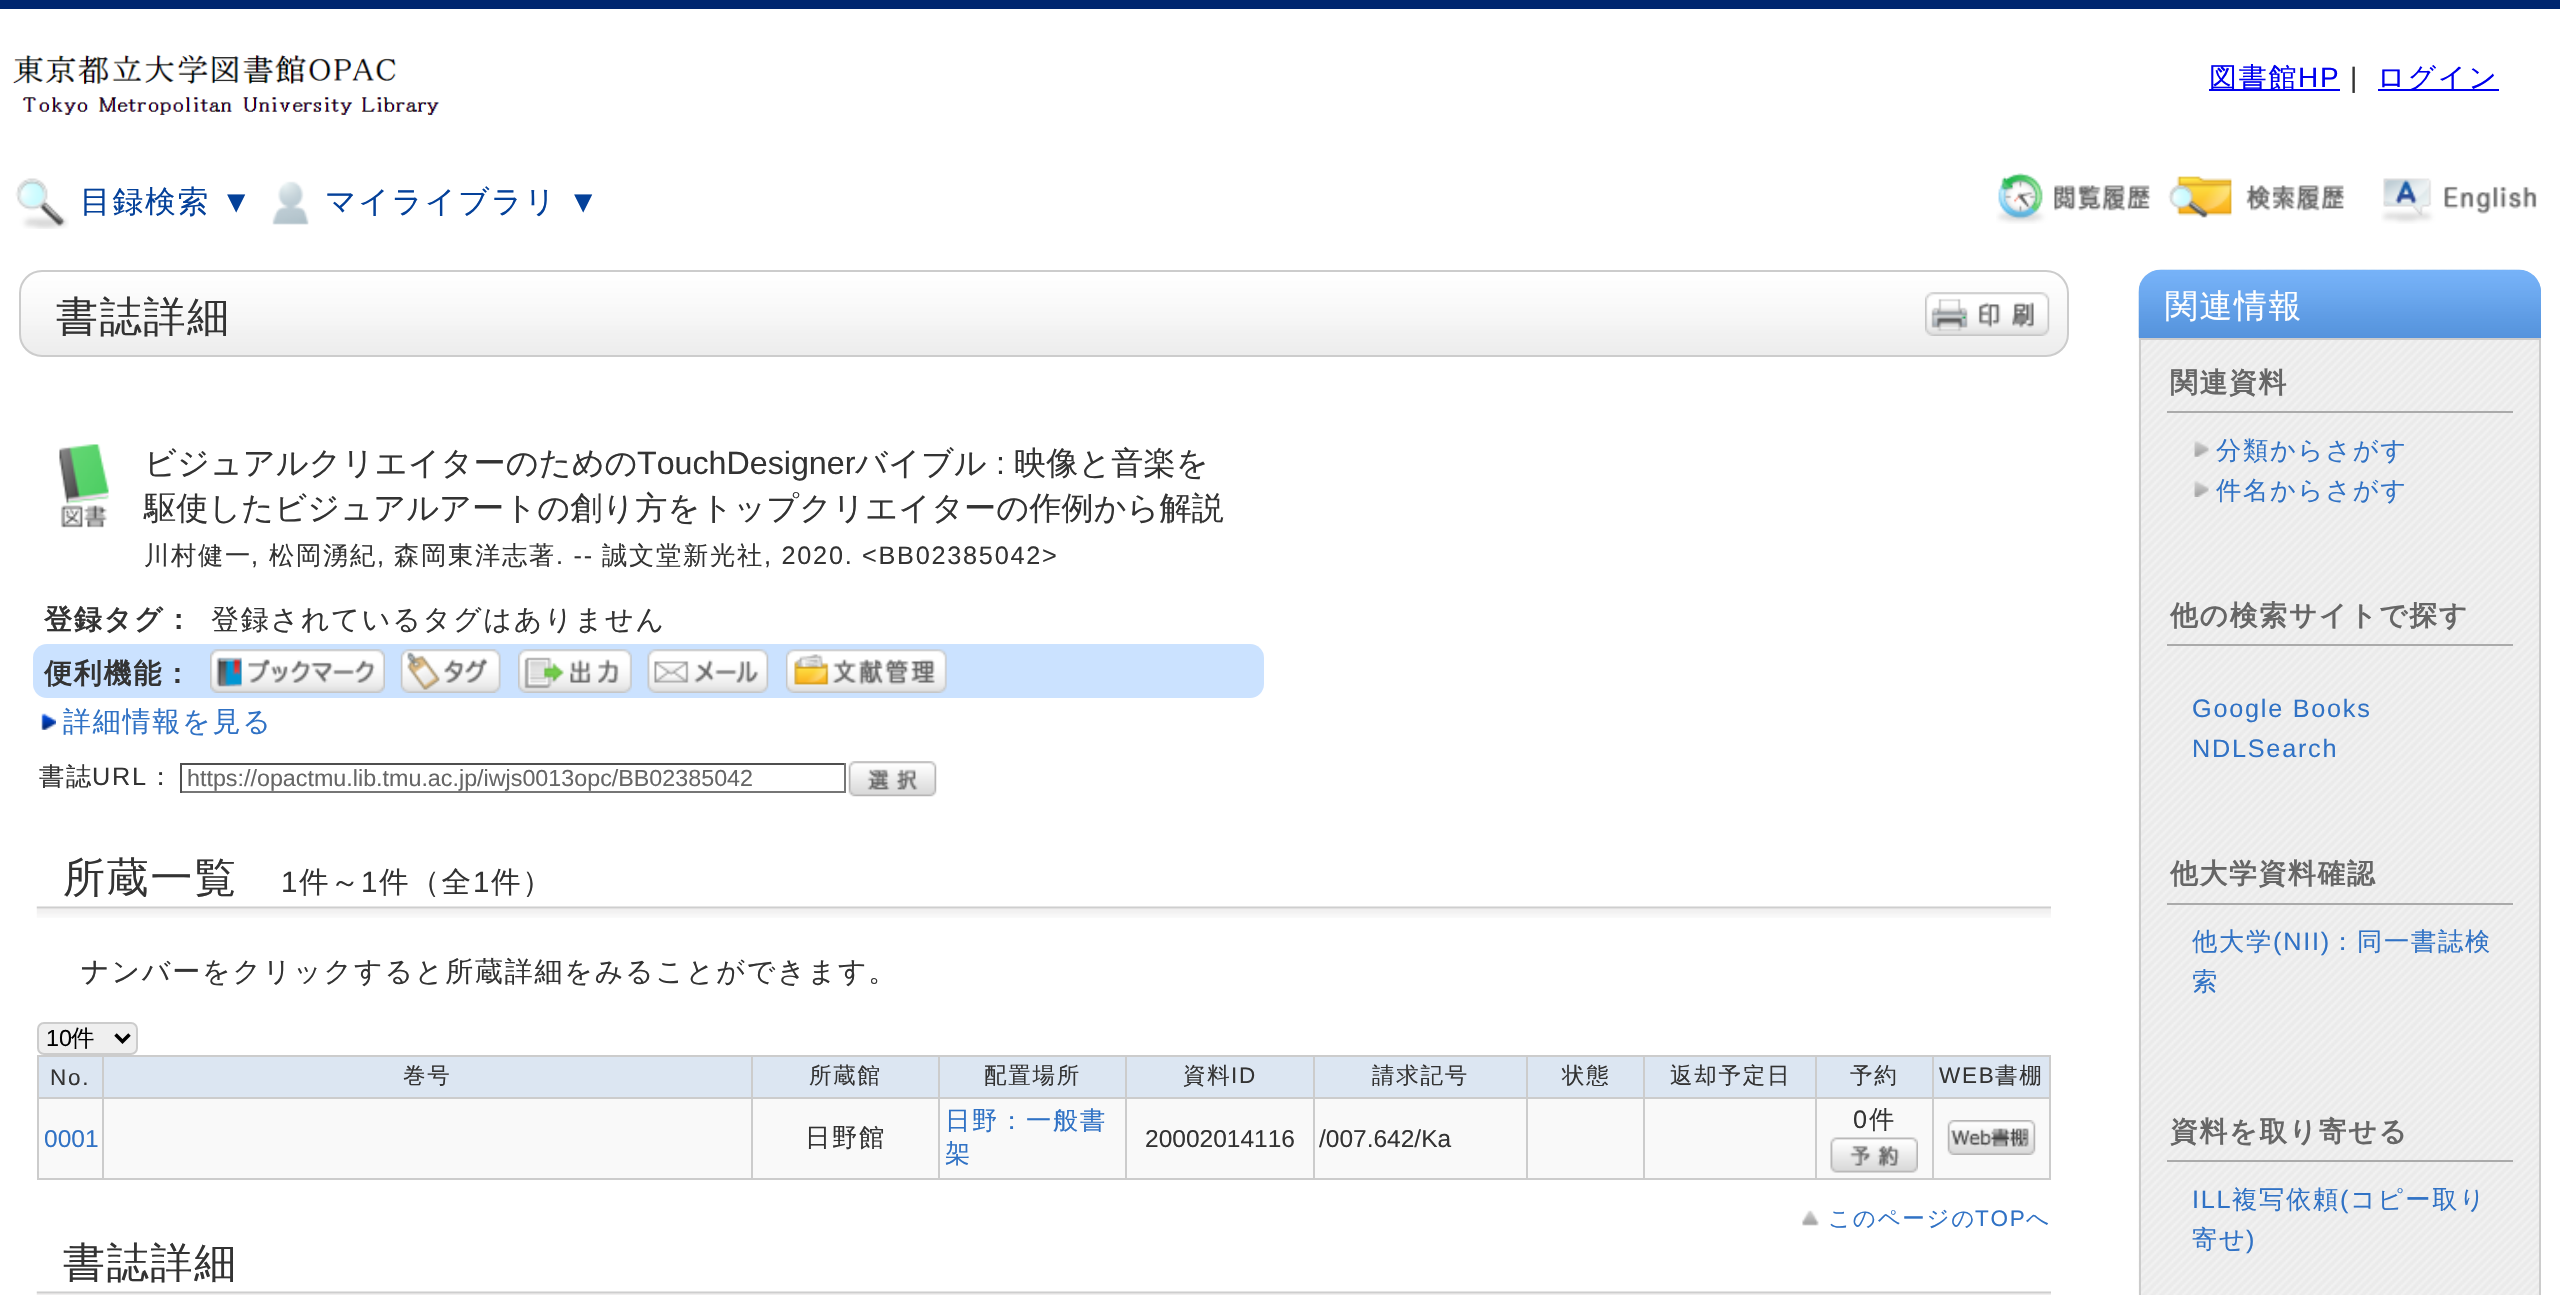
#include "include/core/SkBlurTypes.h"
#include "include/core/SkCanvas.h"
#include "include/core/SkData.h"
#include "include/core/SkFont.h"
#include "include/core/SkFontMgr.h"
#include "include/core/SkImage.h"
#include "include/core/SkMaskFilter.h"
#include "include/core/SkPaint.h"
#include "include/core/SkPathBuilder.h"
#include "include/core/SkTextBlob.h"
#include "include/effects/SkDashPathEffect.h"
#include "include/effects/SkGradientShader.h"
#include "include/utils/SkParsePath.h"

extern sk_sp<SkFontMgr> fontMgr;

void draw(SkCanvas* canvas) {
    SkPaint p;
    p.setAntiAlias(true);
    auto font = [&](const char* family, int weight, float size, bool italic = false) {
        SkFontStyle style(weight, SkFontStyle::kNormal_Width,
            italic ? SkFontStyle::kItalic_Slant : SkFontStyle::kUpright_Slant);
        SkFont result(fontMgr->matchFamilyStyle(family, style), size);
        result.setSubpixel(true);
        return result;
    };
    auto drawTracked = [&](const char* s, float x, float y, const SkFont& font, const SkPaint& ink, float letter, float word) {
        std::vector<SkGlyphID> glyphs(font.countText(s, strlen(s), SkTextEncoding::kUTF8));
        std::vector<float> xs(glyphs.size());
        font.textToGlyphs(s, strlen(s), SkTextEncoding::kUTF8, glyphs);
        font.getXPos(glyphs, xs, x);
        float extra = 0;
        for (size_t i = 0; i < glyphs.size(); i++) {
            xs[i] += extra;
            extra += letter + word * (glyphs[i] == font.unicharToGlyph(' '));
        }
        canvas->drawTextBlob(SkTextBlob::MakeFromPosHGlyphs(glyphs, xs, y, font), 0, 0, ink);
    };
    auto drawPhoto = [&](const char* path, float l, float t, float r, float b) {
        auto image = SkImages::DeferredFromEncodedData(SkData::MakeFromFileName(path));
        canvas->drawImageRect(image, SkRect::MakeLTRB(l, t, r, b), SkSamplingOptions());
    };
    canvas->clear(0xFFFFFFFF);
    p.setColor(0xFF00266F);
    canvas->drawRect(SkRect::MakeLTRB(0, 0, 2560, 9), p);
    drawPhoto("media/1.png", 12, 55, 440, 115);
    p.setColor(0xFF0000EE);
    canvas->drawRect(SkRect::MakeLTRB(2209, 89, 2340, 91), p);
    auto font1 = font("WenQuanYi Zen Hei", 500, 28);
    drawTracked("図書館", 2209, 87, font1, p, 1.75f, 0);
    auto font2 = font("Liberation Sans", 400, 28);
    drawTracked("HP", 2298, 87, font2, p, 1.75f, 0);
    p.setColor(0xFF333333);
    drawTracked("|", 2350, 87, font2, p, 1.75f, 0);
    p.setColor(0xFF0000EE);
    canvas->drawRect(SkRect::MakeLTRB(2378, 89, 2499, 91), p);
    drawTracked("ログイン", 2377, 87, font1, p, 1.75f, 0);
    drawPhoto("media/2.png", 15, 178, 69, 229);
    auto font3 = font("WenQuanYi Zen Hei", 500, 30.75f);
    p.setColor(0xFF04419A);
    drawTracked("目録検索", 80, 212, font3, p, 1.75f, 0);
    auto font4 = font("Liberation Sans", 400, 30.75f);
    drawTracked("▼", 221, 212, font4, p, 1.75f, 0);
    drawPhoto("media/3.png", 272, 181, 309, 225);
    drawTracked("マイライブラリ", 325, 212, font3, p, 1.75f, 0);
    drawTracked("▼", 568, 212, font4, p, 1.75f, 0);
    drawPhoto("media/4.png", 1996, 173, 2151, 224);
    drawPhoto("media/5.png", 2168, 176, 2345, 218);
    drawPhoto("media/6.png", 2381, 178, 2537, 224);
    drawPhoto("media/7.png", 20, 270, 2068, 355);
    p.setStyle(SkPaint::kStroke_Style);
    p.setStrokeWidth(2);
    p.setColor(0xFFCCCCCC);
    canvas->drawRoundRect(SkRect::MakeLTRB(20, 271, 2068, 356), 22, 22, p);
    auto font5 = font("WenQuanYi Zen Hei", 500, 42);
    p.setStyle(SkPaint::kFill_Style);
    p.setColor(0xFF333333);
    drawTracked("書誌詳細", 56, 331, font5, p, 1.75f, 0);
    drawPhoto("media/8.png", 1925, 292, 2050, 336);
    drawPhoto("media/9.png", 59, 444, 109, 528);
    auto font6 = font("WenQuanYi Zen Hei", 500, 32.2f);
    canvas->drawString("ビジュアルクリエイターのための", 144, 474, font6, p);
    auto font7 = font("Liberation Sans", 400, 32.2f);
    canvas->drawString("TouchDesigner", 637, 474, font7, p);
    canvas->drawString("バイブル", 855, 474, font6, p);
    canvas->drawString(":", 996, 474, font7, p);
    canvas->drawString("映像と音楽を", 1014, 474, font6, p);
    canvas->drawString("駆使したビジュアルアートの創り方をトップクリエイターの作例から解説", 144, 519, font6, p);
    auto font8 = font("WenQuanYi Zen Hei", 500, 25.25f);
    drawTracked("川村健一", 144, 564, font8, p, 1.75f, 0);
    auto font9 = font("Liberation Sans", 400, 25.25f);
    drawTracked(",", 251, 564, font9, p, 1.75f, 0);
    drawTracked("松岡湧紀", 269, 564, font8, p, 1.75f, 0);
    drawTracked(",", 377, 564, font9, p, 1.75f, 0);
    drawTracked("森岡東洋志著", 394, 564, font8, p, 1.75f, 0);
    drawTracked(". --", 556, 564, font9, p, 1.75f, 0);
    drawTracked("誠文堂新光社", 602, 564, font8, p, 1.75f, 0);
    drawTracked(", 2020.", 764, 564, font9, p, 1.75f, 0);
    drawTracked("<BB02385042>", 862, 564, font9, p, 1.75f, 0);
    auto font10 = font("WenQuanYi Zen Hei", 700, 28);
    drawTracked("登録タグ：", 44, 629, font10, p, 1.75f, 0);
    drawTracked("登録されているタグはありません", 211, 629, font1, p, 1.75f, 0);
    p.setColor(0xFFCBE2FF);
    canvas->drawRoundRect(SkRect::MakeLTRB(33, 644, 1264, 698), 14, 14, p);
    p.setColor(0xFF333333);
    drawTracked("便利機能：", 44, 683, font10, p, 1.75f, 0);
    drawPhoto("media/10.png", 210, 649, 385, 693);
    drawPhoto("media/11.png", 400, 649, 501, 693);
    drawPhoto("media/12.png", 518, 649, 632, 693);
    drawPhoto("media/13.png", 647, 649, 769, 693);
    drawPhoto("media/14.png", 785, 649, 947, 693);
    drawPhoto("media/15.png", 41, 713, 56, 730);
    p.setColor(0xFF3072C5);
    drawTracked("詳細情報を見る", 63, 731, font1, p, 1.75f, 0);
    p.setColor(0xFF333333);
    drawTracked("書誌", 39, 785, font8, p, 1.75f, 0);
    drawTracked("URL", 92, 785, font9, p, 1.75f, 0);
    drawTracked("：", 148, 785, font8, p, 1.75f, 0);
    {
        const struct { float l, t, r, b; SkColor color; } items[] = {
            {180, 763, 845, 765, 0xFF4F4F4F},
            {844, 763, 846, 793, 0xFF767676},
            {180, 791, 845, 793, 0xFF767676},
            {180, 763, 182, 793, 0xFF4F4F4F},
        };
        for (auto [l, t, r, b, color] : items) {
            p.setColor(color);
            canvas->drawRect(SkRect::MakeLTRB(l, t, r, b), p);
        }
    }
    auto font11 = font("Liberation Sans", 400, 23.3f);
    p.setColor(0xFF666666);
    canvas->drawString("https://opactmu.lib.tmu.ac.jp/iwjs0013opc/BB02385042", 187, 786, font11, p);
    drawPhoto("media/16.png", 848, 761, 937, 797);
    drawPhoto("media/17.png", 36, 906, 2051, 918);
    p.setColor(0xFF333333);
    drawTracked("所蔵一覧", 63, 892, font5, p, 1.75f, 0);
    auto font12 = font("Liberation Sans", 400, 29.5f);
    drawTracked("1", 281, 892, font12, p, 1.75f, 0);
    auto font13 = font("WenQuanYi Zen Hei", 500, 29.5f);
    drawTracked("件～", 299, 892, font13, p, 1.75f, 0);
    drawTracked("1", 361, 892, font12, p, 1.75f, 0);
    drawTracked("件（全", 379, 892, font13, p, 1.75f, 0);
    drawTracked("1", 473, 892, font12, p, 1.75f, 0);
    drawTracked("件）", 491, 892, font13, p, 1.75f, 0);
    drawTracked("ナンバーをクリックすると所蔵詳細をみることができます。", 81, 981, font1, p, 1.75f, 0);
    p.setColor(0xFFEFEFEF);
    canvas->drawRoundRect(SkRect::MakeLTRB(38, 1023, 137, 1054), 6, 6, p);
    p.setStyle(SkPaint::kStroke_Style);
    p.setColor(0xFFCCCCCC);
    canvas->drawRoundRect(SkRect::MakeLTRB(38, 1023, 137, 1054), 6, 6, p);
    p.setStrokeWidth(3.5f);
    p.setColor(0xFF000000);
    canvas->drawPath(SkPathBuilder().moveTo(115.5f, 1034.5f).lineTo(122.5f, 1041.5f).lineTo(129.5f, 1034.5f).detach(), p);
    p.setStyle(SkPaint::kFill_Style);
    canvas->drawString("10", 46, 1046, font11, p);
    auto font14 = font("WenQuanYi Zen Hei", 500, 23.3f);
    canvas->drawString("件", 71, 1046, font14, p);
    {
        const struct { float l, t, r, b; SkColor color; } items[] = {
            {37, 1055, 2051, 1057, 0xFFCCCCCC},
            {2049, 1055, 2051, 1180, 0xFFCCCCCC},
            {37, 1178, 2051, 1180, 0xFFCCCCCC},
            {37, 1055, 39, 1180, 0xFFCCCCCC},
            {39, 1057, 102, 1097, 0xFFDCE6F2},
        };
        for (auto [l, t, r, b, color] : items) {
            p.setColor(color);
            canvas->drawRect(SkRect::MakeLTRB(l, t, r, b), p);
        }
    }
    auto font15 = font("Liberation Sans", 400, 22.5f);
    p.setColor(0xFF333333);
    drawTracked("No.", 50, 1085, font15, p, 1.75f, 0);
    {
        const struct { float l, t, r, b; SkColor color; } items[] = {
            {104, 1057, 751, 1097, 0xFFDCE6F2},
            {1932, 1097, 2051, 1099, 0xFFCCCCCC},
            {1932, 1097, 1934, 1180, 0xFFCCCCCC},
            {1815, 1097, 1934, 1099, 0xFFCCCCCC},
            {1815, 1097, 1817, 1180, 0xFFCCCCCC},
            {1643, 1097, 1817, 1099, 0xFFCCCCCC},
            {1643, 1097, 1645, 1180, 0xFFCCCCCC},
            {1526, 1097, 1645, 1099, 0xFFCCCCCC},
            {1526, 1097, 1528, 1180, 0xFFCCCCCC},
            {1313, 1097, 1528, 1099, 0xFFCCCCCC},
            {1313, 1097, 1315, 1180, 0xFFCCCCCC},
            {1125, 1097, 1314, 1099, 0xFFCCCCCC},
            {1125, 1097, 1127, 1180, 0xFFCCCCCC},
            {938, 1097, 1127, 1099, 0xFFCCCCCC},
            {938, 1097, 940, 1180, 0xFFCCCCCC},
            {751, 1097, 940, 1099, 0xFFCCCCCC},
            {751, 1097, 753, 1180, 0xFFCCCCCC},
            {102, 1097, 753, 1099, 0xFFCCCCCC},
            {102, 1097, 104, 1180, 0xFFCCCCCC},
            {37, 1097, 103, 1099, 0xFFCCCCCC},
            {102, 1055, 104, 1099, 0xFFCCCCCC},
        };
        for (auto [l, t, r, b, color] : items) {
            p.setColor(color);
            canvas->drawRect(SkRect::MakeLTRB(l, t, r, b), p);
        }
    }
    auto font16 = font("WenQuanYi Zen Hei", 500, 22.5f);
    p.setColor(0xFF333333);
    drawTracked("巻号", 403, 1083, font16, p, 1.75f, 0);
    p.setColor(0xFFDCE6F2);
    canvas->drawRect(SkRect::MakeLTRB(753, 1057, 938, 1097), p);
    p.setColor(0xFFCCCCCC);
    canvas->drawRect(SkRect::MakeLTRB(751, 1055, 753, 1099), p);
    p.setColor(0xFF333333);
    drawTracked("所蔵館", 809, 1083, font16, p, 1.75f, 0);
    p.setColor(0xFFDCE6F2);
    canvas->drawRect(SkRect::MakeLTRB(940, 1057, 1125, 1097), p);
    p.setColor(0xFFCCCCCC);
    canvas->drawRect(SkRect::MakeLTRB(938, 1055, 940, 1099), p);
    p.setColor(0xFF333333);
    drawTracked("配置場所", 984, 1083, font16, p, 1.75f, 0);
    p.setColor(0xFFDCE6F2);
    canvas->drawRect(SkRect::MakeLTRB(1127, 1057, 1313, 1097), p);
    p.setColor(0xFFCCCCCC);
    canvas->drawRect(SkRect::MakeLTRB(1125, 1055, 1127, 1099), p);
    p.setColor(0xFF333333);
    drawTracked("資料", 1183, 1083, font16, p, 1.75f, 0);
    drawTracked("ID", 1231, 1083, font15, p, 1.75f, 0);
    p.setColor(0xFFDCE6F2);
    canvas->drawRect(SkRect::MakeLTRB(1315, 1057, 1526, 1097), p);
    p.setColor(0xFFCCCCCC);
    canvas->drawRect(SkRect::MakeLTRB(1313, 1055, 1315, 1099), p);
    p.setColor(0xFF333333);
    drawTracked("請求記号", 1372, 1083, font16, p, 1.75f, 0);
    p.setColor(0xFFDCE6F2);
    canvas->drawRect(SkRect::MakeLTRB(1528, 1057, 1643, 1097), p);
    p.setColor(0xFFCCCCCC);
    canvas->drawRect(SkRect::MakeLTRB(1526, 1055, 1528, 1099), p);
    p.setColor(0xFF333333);
    drawTracked("状態", 1562, 1083, font16, p, 1.75f, 0);
    p.setColor(0xFFDCE6F2);
    canvas->drawRect(SkRect::MakeLTRB(1645, 1057, 1815, 1097), p);
    p.setColor(0xFFCCCCCC);
    canvas->drawRect(SkRect::MakeLTRB(1643, 1055, 1645, 1099), p);
    p.setColor(0xFF333333);
    drawTracked("返却予定日", 1670, 1083, font16, p, 1.75f, 0);
    p.setColor(0xFFDCE6F2);
    canvas->drawRect(SkRect::MakeLTRB(1817, 1057, 1932, 1097), p);
    p.setColor(0xFFCCCCCC);
    canvas->drawRect(SkRect::MakeLTRB(1815, 1055, 1817, 1099), p);
    p.setColor(0xFF333333);
    drawTracked("予約", 1850, 1083, font16, p, 1.75f, 0);
    p.setColor(0xFFDCE6F2);
    canvas->drawRect(SkRect::MakeLTRB(1934, 1057, 2049, 1097), p);
    p.setColor(0xFFCCCCCC);
    canvas->drawRect(SkRect::MakeLTRB(1932, 1055, 1934, 1099), p);
    p.setColor(0xFF333333);
    drawTracked("WEB", 1939, 1083, font15, p, 1.75f, 0);
    drawTracked("書棚", 1995, 1083, font16, p, 1.75f, 0);
    p.setColor(0xFFF9F9F9);
    canvas->drawRect(SkRect::MakeLTRB(39, 1099, 102, 1178), p);
    auto font17 = font("Liberation Sans", 400, 24.5f);
    p.setColor(0xFF3072C5);
    canvas->drawString("0001", 44, 1147, font17, p);
    p.setColor(0xFFF9F9F9);
    canvas->drawRect(SkRect::MakeLTRB(104, 1099, 751, 1178), p);
    canvas->drawRect(SkRect::MakeLTRB(753, 1099, 938, 1178), p);
    p.setColor(0xFF333333);
    drawTracked("日野館", 805, 1146, font8, p, 1.75f, 0);
    p.setColor(0xFFF9F9F9);
    canvas->drawRect(SkRect::MakeLTRB(940, 1099, 1125, 1178), p);
    p.setColor(0xFF3072C5);
    drawTracked("日野：一般書", 945, 1129, font8, p, 1.75f, 0);
    drawTracked("架", 945, 1162, font8, p, 1.75f, 0);
    p.setColor(0xFFF9F9F9);
    canvas->drawRect(SkRect::MakeLTRB(1127, 1099, 1313, 1178), p);
    p.setColor(0xFF333333);
    canvas->drawString("20002014116", 1145, 1147, font17, p);
    p.setColor(0xFFF9F9F9);
    canvas->drawRect(SkRect::MakeLTRB(1315, 1099, 1526, 1178), p);
    p.setColor(0xFF333333);
    canvas->drawString("/007.642/Ka", 1319, 1147, font17, p);
    {
        const struct { float l, t, r, b; SkColor color; } items[] = {
            {1528, 1099, 1643, 1178, 0xFFF9F9F9},
            {1645, 1099, 1815, 1178, 0xFFF9F9F9},
            {1817, 1099, 1932, 1178, 0xFFF9F9F9},
        };
        for (auto [l, t, r, b, color] : items) {
            p.setColor(color);
            canvas->drawRect(SkRect::MakeLTRB(l, t, r, b), p);
        }
    }
    p.setColor(0xFF333333);
    drawTracked("0", 1853, 1128, font9, p, 1.75f, 0);
    drawTracked("件", 1869, 1128, font8, p, 1.75f, 0);
    drawPhoto("media/18.png", 1830, 1137, 1918, 1173);
    p.setColor(0xFFF9F9F9);
    canvas->drawRect(SkRect::MakeLTRB(1934, 1099, 2049, 1178), p);
    drawPhoto("media/19.png", 1947, 1120, 2036, 1155);
    drawPhoto("media/20.png", 1802, 1210, 1819, 1226);
    p.setColor(0xFF3072C5);
    drawTracked("このページの", 1828, 1226, font16, p, 1.75f, 0);
    drawTracked("TOP", 1975, 1226, font15, p, 1.75f, 0);
    drawTracked("へ", 2026, 1226, font16, p, 1.75f, 0);
    drawPhoto("media/21.png", 36, 1291, 2051, 1295);
    p.setColor(0xFF333333);
    drawTracked("書誌詳細", 63, 1277, font5, p, 1.75f, 0);
    drawPhoto("media/22.png", 2138, 269, 2541, 1295);
    p.setColor(0xFF5492DC);
    canvas->drawPath(SkPathBuilder().moveTo(2162, 270).lineTo(2518, 270).cubicTo(2530.5f, 270, 2541, 280.5f, 2541, 293).lineTo(2541, 338).lineTo(2139, 338).lineTo(2139, 293).cubicTo(2139, 280.5f, 2149.5f, 270, 2162, 270).close().detach(), p);
    drawPhoto("media/23.png", 2138, 269, 2541, 338);
    auto font18 = font("WenQuanYi Zen Hei", 500, 32.75f);
    p.setColor(0xFFFFFFFF);
    drawTracked("関連情報", 2165, 317, font18, p, 1.75f, 0);
    p.setStyle(SkPaint::kStroke_Style);
    p.setStrokeWidth(2);
    p.setColor(0xFFCCCCCC);
    canvas->drawRect(SkRect::MakeLTRB(2140, 339, 2540, 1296), p);
    p.setStyle(SkPaint::kFill_Style);
    p.setColor(0xFFAAAAAA);
    canvas->drawRect(SkRect::MakeLTRB(2167, 411, 2513, 413), p);
    auto font19 = font("WenQuanYi Zen Hei", 700, 27.75f);
    p.setColor(0xFF666666);
    drawTracked("関連資料", 2170, 392, font19, p, 1.75f, 0);
    drawPhoto("media/24.png", 2194, 440, 2209, 457);
    p.setColor(0xFF3072C5);
    drawTracked("分類からさがす", 2216, 459, font8, p, 1.75f, 0);
    drawPhoto("media/25.png", 2194, 481, 2209, 497);
    drawTracked("件名からさがす", 2216, 499, font8, p, 1.75f, 0);
    p.setColor(0xFFAAAAAA);
    canvas->drawRect(SkRect::MakeLTRB(2167, 644, 2513, 646), p);
    p.setColor(0xFF666666);
    drawTracked("他の検索サイトで探す", 2170, 625, font19, p, 1.75f, 0);
    p.setColor(0xFF3072C5);
    drawTracked("Google Books", 2192, 717, font9, p, 1.75f, 0);
    drawTracked("NDLSearch", 2192, 757, font9, p, 1.75f, 0);
    p.setColor(0xFFAAAAAA);
    canvas->drawRect(SkRect::MakeLTRB(2167, 903, 2513, 905), p);
    p.setColor(0xFF666666);
    drawTracked("他大学資料確認", 2170, 883, font19, p, 1.75f, 0);
    p.setColor(0xFF3072C5);
    drawTracked("他大学", 2192, 950, font8, p, 1.75f, 0);
    drawTracked("(NII)", 2273, 950, font9, p, 1.75f, 0);
    drawTracked("：同一書誌検", 2330, 950, font8, p, 1.75f, 0);
    drawTracked("索", 2192, 990, font8, p, 1.75f, 0);
    p.setColor(0xFFAAAAAA);
    canvas->drawRect(SkRect::MakeLTRB(2167, 1160, 2513, 1162), p);
    p.setColor(0xFF666666);
    drawTracked("資料を取り寄せる", 2170, 1141, font19, p, 1.75f, 0);
    p.setColor(0xFF3072C5);
    drawTracked("ILL", 2192, 1208, font9, p, 1.75f, 0);
    drawTracked("複写依頼", 2232, 1208, font8, p, 1.75f, 0);
    drawTracked("(", 2340, 1208, font9, p, 1.75f, 0);
    drawTracked("コピー取り", 2350, 1208, font8, p, 1.75f, 0);
    drawTracked("寄せ", 2192, 1248, font8, p, 1.75f, 0);
    drawTracked(")", 2246, 1248, font9, p, 1.75f, 0);
}
